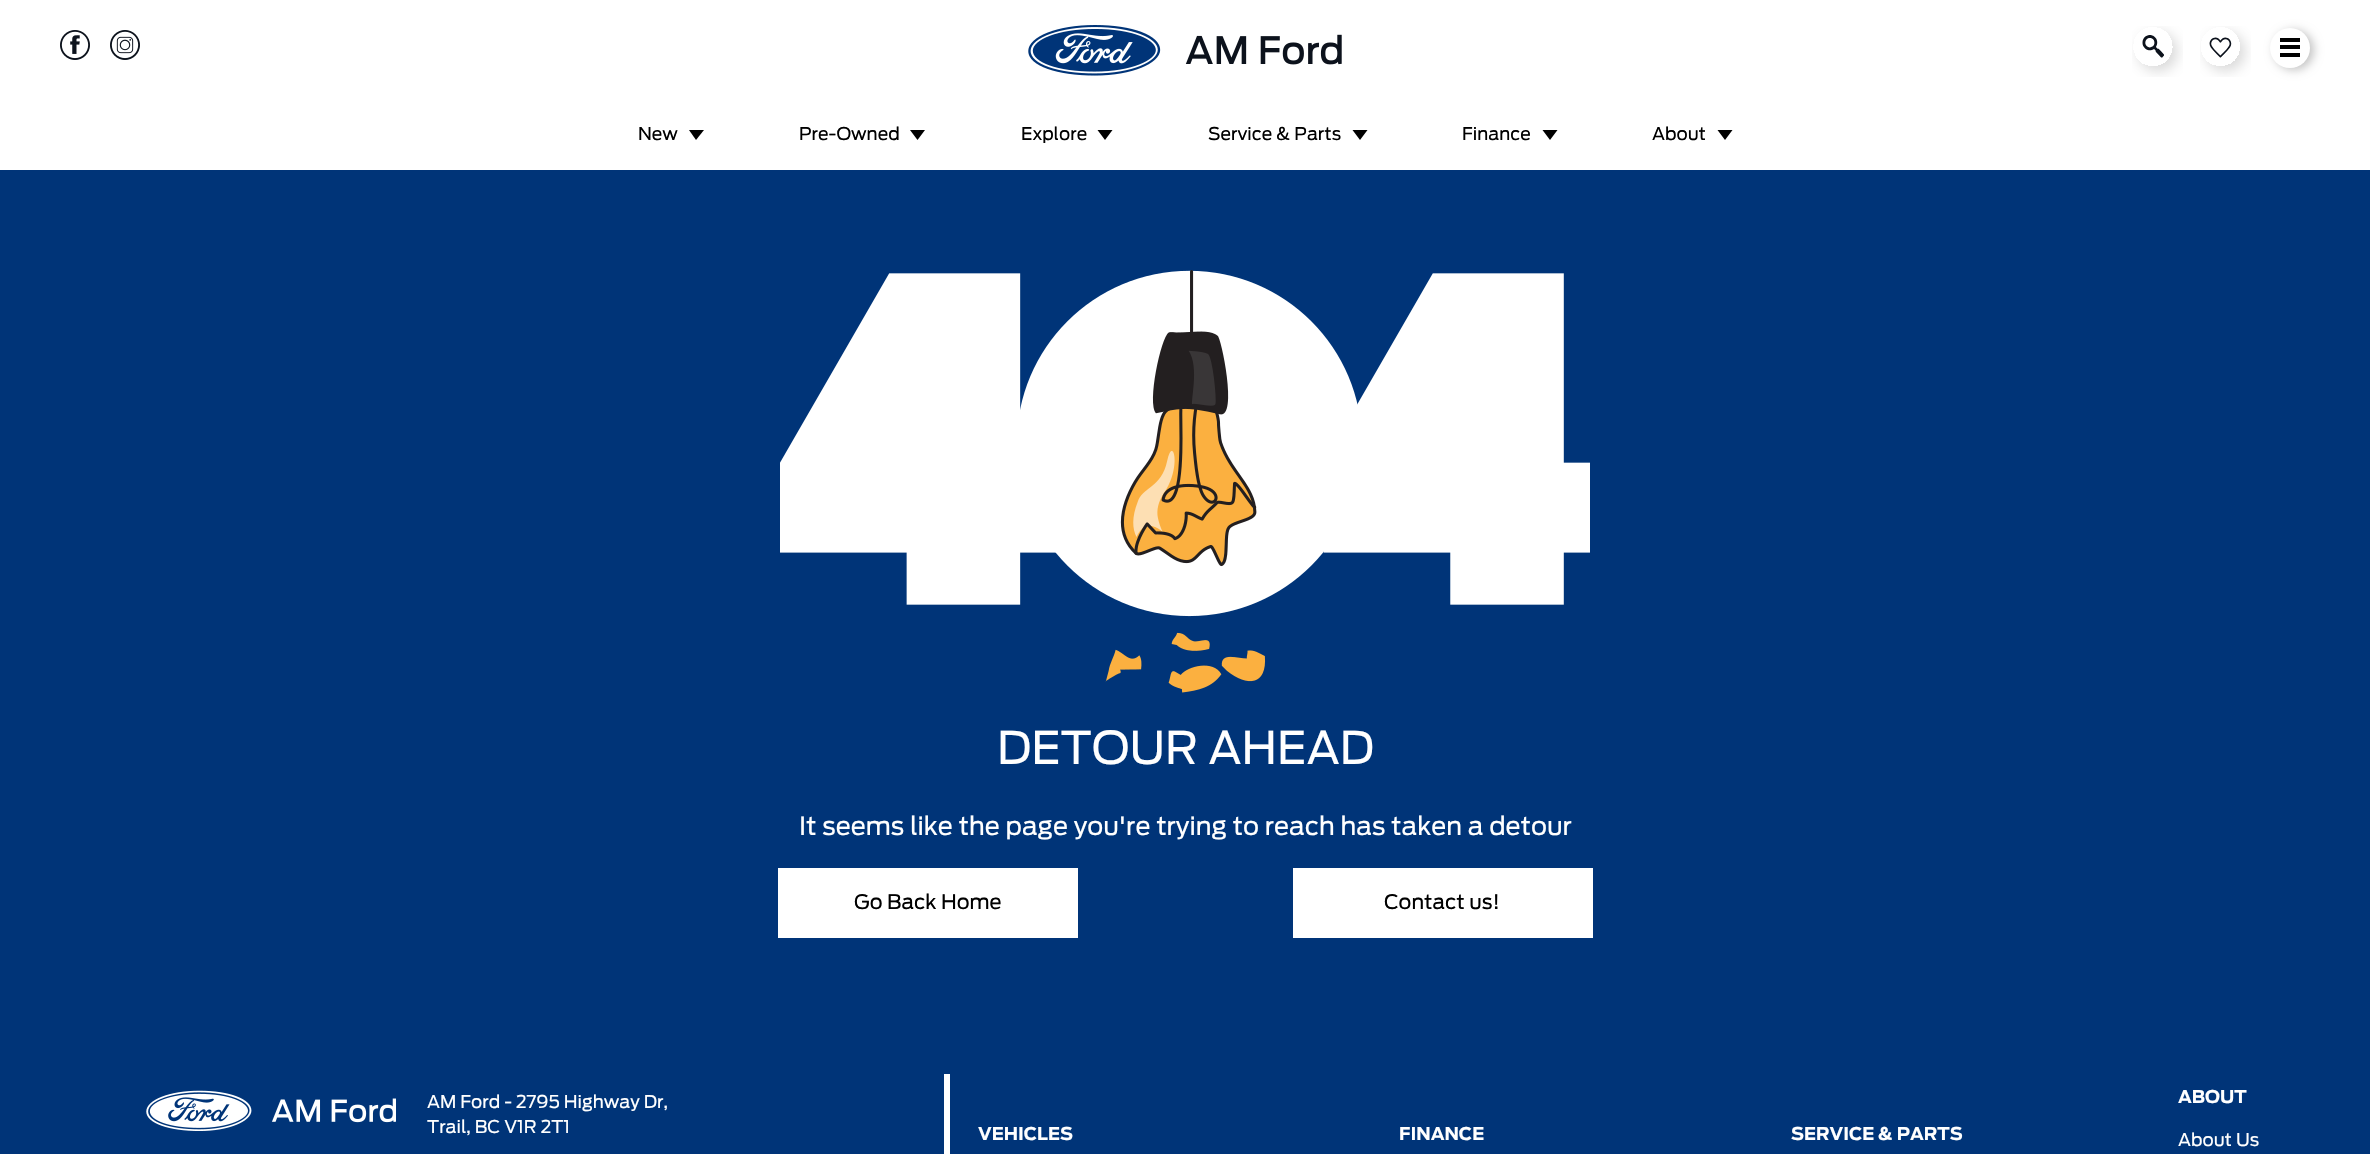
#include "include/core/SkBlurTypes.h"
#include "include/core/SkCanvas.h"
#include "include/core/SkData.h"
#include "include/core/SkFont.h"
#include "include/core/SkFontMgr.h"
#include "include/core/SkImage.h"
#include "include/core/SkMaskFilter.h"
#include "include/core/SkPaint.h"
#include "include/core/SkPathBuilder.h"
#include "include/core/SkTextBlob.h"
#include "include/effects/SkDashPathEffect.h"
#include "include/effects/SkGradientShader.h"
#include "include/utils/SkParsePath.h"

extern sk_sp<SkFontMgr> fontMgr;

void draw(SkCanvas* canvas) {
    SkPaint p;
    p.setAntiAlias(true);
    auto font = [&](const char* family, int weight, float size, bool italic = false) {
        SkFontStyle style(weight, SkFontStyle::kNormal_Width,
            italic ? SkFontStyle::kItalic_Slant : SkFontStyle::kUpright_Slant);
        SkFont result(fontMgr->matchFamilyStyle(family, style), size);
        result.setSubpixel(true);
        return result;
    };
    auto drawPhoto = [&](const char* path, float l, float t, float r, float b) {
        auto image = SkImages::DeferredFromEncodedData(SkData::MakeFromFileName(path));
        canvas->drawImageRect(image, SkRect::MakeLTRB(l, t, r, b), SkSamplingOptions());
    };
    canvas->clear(0xFFFFFFFF);
    drawPhoto("media/1.png", 60, 30, 90, 60);
    drawPhoto("media/2.png", 110, 30, 140, 60);
    drawPhoto("media/3.png", 1028, 25, 1342, 76);
    drawPhoto("media/4.png", 2132, 26, 2183, 77);
    drawPhoto("media/5.png", 2200, 26, 2251, 77);
    p.setColor(0xFFC3C3C3);
    p.setMaskFilter(SkMaskFilter::MakeBlur(kNormal_SkBlurStyle, 5));
    canvas->drawRoundRect(SkRect::MakeLTRB(2274, 30, 2314, 70), 20, 20, p);
    p.setMaskFilter(nullptr);
    p.setColor(0xFFFFFFFF);
    canvas->drawCircle(2290, 48, 20, p);
    {
        const struct { float l, t, r, b; SkColor color; } items[] = {
            {2280, 38, 2300, 42, 0xFF000000},
            {2280, 45, 2300, 49, 0xFF000000},
            {2280, 53, 2300, 57, 0xFF000000},
        };
        for (auto [l, t, r, b, color] : items) {
            p.setColor(color);
            canvas->drawRect(SkRect::MakeLTRB(l, t, r, b), p);
        }
    }
    auto font1 = font("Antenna", 400, 17.5f);
    canvas->drawString("New", 638, 140, font1, p);
    canvas->drawPath(SkPathBuilder().moveTo(689, 130).lineTo(704, 130).lineTo(696, 140).close().detach(), p);
    canvas->drawString("Pre-Owned", 799, 140, font1, p);
    canvas->drawPath(SkPathBuilder().moveTo(910, 130).lineTo(925, 130).lineTo(917.5f, 140).close().detach(), p);
    canvas->drawString("Explore", 1021, 140, font1, p);
    canvas->drawPath(SkPathBuilder().moveTo(1097.5f, 130).lineTo(1112.5f, 130).lineTo(1105, 140).close().detach(), p);
    canvas->drawString("Service & Parts", 1208, 140, font1, p);
    canvas->drawPath(SkPathBuilder().moveTo(1352.5f, 130).lineTo(1367.5f, 130).lineTo(1360, 140).close().detach(), p);
    canvas->drawString("Finance", 1462, 140, font1, p);
    canvas->drawPath(SkPathBuilder().moveTo(1542.5f, 130).lineTo(1557.5f, 130).lineTo(1550, 140).close().detach(), p);
    canvas->drawString("About", 1652, 140, font1, p);
    canvas->drawPath(SkPathBuilder().moveTo(1717.5f, 130).lineTo(1732.5f, 130).lineTo(1725, 140).close().detach(), p);
    p.setColor(0xFF003478);
    canvas->drawRect(SkRect::MakeLTRB(0, 170, 2370, 1154), p);
    drawPhoto("media/6.png", 780, 270, 1590, 693);
    auto font2 = font("Antenna", 400, 45);
    p.setColor(0xFFFFFFFF);
    canvas->drawString("DETOUR AHEAD", 997, 764, font2, p);
    auto font3 = font("Antenna", 400, 25);
    canvas->drawString("It seems like the page you're trying to reach has taken a detour", 799, 835, font3, p);
    canvas->drawRect(SkRect::MakeLTRB(778, 868, 1078, 938), p);
    auto font4 = font("Antenna", 400, 20);
    p.setColor(0xFF000000);
    canvas->drawString("Go Back Home", 854, 909, font4, p);
    p.setColor(0xFFFFFFFF);
    canvas->drawRect(SkRect::MakeLTRB(1293, 868, 1593, 938), p);
    p.setColor(0xFF000000);
    canvas->drawString("Contact us!", 1384, 909, font4, p);
    drawPhoto("media/7.png", 146, 1090, 396, 1131);
    p.setColor(0xFFFFFFFF);
    canvas->drawString("AM Ford - 2795 Highway Dr,", 427, 1108, font1, p);
    canvas->drawString("Trail, BC V1R 2T1", 427, 1133, font1, p);
    canvas->drawRect(SkRect::MakeLTRB(944, 1074, 950, 1154), p);
    auto font5 = font("Antenna", 700, 17.5f);
    {
        const struct { const char* s; float x, y; } items[] = {
            {"VEHICLES", 978, 1140},
            {"FINANCE", 1399, 1140},
            {"SERVICE & PARTS", 1791, 1140},
            {"ABOUT", 2178, 1103},
        };
        for (auto [s, x, y] : items) {
            canvas->drawString(s, x, y, font5, p);
        }
    }
    canvas->drawString("About Us", 2178, 1146, font1, p);
}
